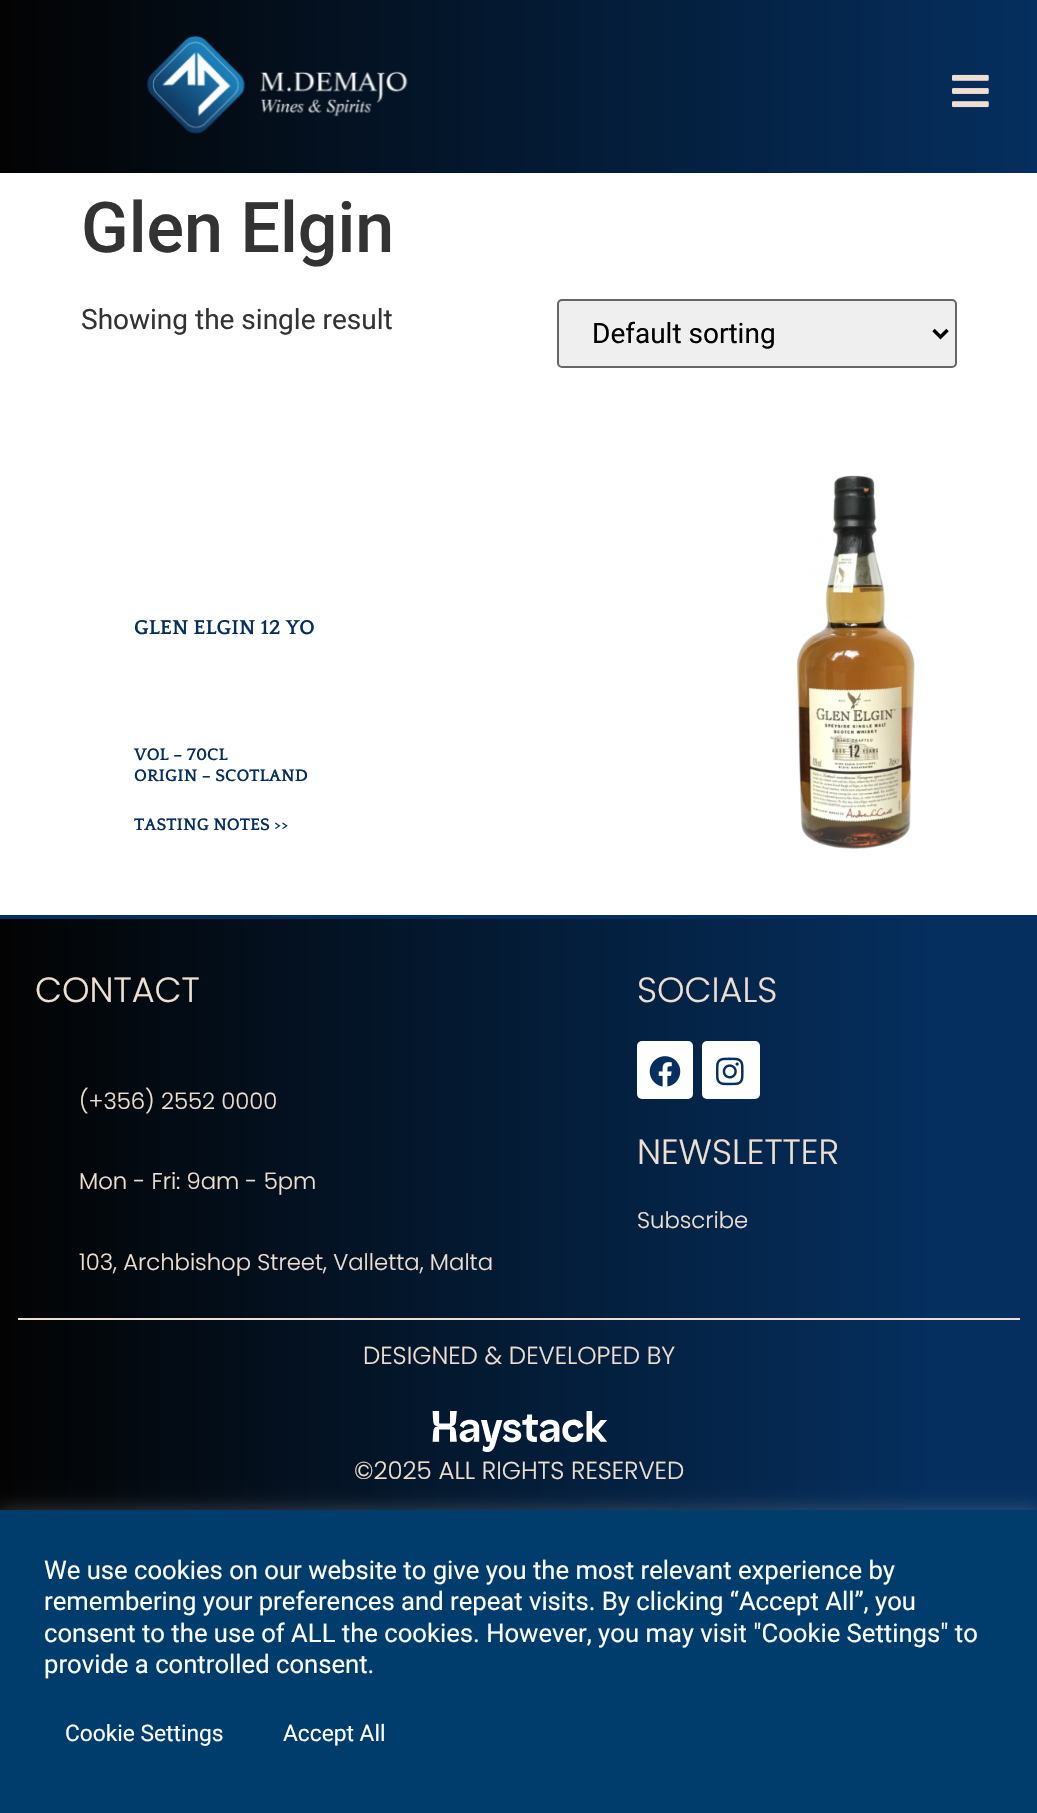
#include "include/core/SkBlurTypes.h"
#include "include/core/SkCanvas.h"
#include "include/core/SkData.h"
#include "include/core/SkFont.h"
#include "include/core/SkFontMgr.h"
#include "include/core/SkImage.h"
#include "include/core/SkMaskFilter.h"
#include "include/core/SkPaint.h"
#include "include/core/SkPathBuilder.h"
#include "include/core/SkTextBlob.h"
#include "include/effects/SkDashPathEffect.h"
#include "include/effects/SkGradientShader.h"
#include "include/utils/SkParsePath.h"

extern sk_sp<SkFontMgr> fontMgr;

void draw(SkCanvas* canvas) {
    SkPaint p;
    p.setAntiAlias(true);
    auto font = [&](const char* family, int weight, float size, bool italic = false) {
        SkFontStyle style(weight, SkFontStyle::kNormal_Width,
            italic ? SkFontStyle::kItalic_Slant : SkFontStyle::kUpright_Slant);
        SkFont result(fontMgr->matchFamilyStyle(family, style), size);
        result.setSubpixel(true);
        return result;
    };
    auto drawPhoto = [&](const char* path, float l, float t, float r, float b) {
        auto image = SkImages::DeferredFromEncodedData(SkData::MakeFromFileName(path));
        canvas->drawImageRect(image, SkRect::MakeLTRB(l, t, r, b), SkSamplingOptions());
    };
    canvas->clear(0xFFFFFFFF);
    {
        const SkColor colors[] = {0xFF052F5F, 0xFF030303};
        const float stops[] = {0, 1};
        const SkPoint ends[] = {{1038, 87}, {0, 87}};
        p.setShader(SkGradientShader::MakeLinear(ends, colors, stops, 2, SkTileMode::kClamp));
        p.setAlpha(255);
    }
    canvas->drawRect(SkRect::MakeLTRB(0, 0, 1037, 173), p);
    drawPhoto("media/1.png", 147, 36, 408, 134);
    drawPhoto("media/2.png", 952, 74, 989, 108);
    auto font1 = font("Roboto", 500, 70);
    p.setShader(nullptr);
    p.setColor(0xFF333333);
    canvas->drawString("Glen Elgin", 81, 252, font1, p);
    auto font2 = font("Roboto", 400, 28);
    canvas->drawString("Showing the single result", 81, 329, font2, p);
    p.setColor(0xFFEFEFEF);
    canvas->drawRoundRect(SkRect::MakeLTRB(558, 300, 956, 367), 4, 4, p);
    p.setStyle(SkPaint::kStroke_Style);
    p.setStrokeWidth(2);
    p.setColor(0xFF666666);
    canvas->drawRoundRect(SkRect::MakeLTRB(558, 300, 956, 367), 4, 4, p);
    p.setStrokeWidth(3.5f);
    p.setColor(0xFF000000);
    canvas->drawPath(SkPathBuilder().moveTo(933.5f, 330).lineTo(940.5f, 337).lineTo(947.5f, 330).detach(), p);
    p.setStyle(SkPaint::kFill_Style);
    canvas->drawString("Default sorting", 592, 343, font2, p);
    auto font3 = font("Quattrocento", 700, 21);
    p.setColor(0xFF052F5F);
    canvas->drawString("GLEN ELGIN 12 YO", 134, 634, font3, p);
    drawPhoto("media/3.png", 796, 475, 915, 849);
    auto font4 = font("Quattrocento", 700, 17.5f);
    {
        const struct { const char* s; float x, y; } items[] = {
            {"VOL – 70CL", 134, 760},
            {"ORIGIN – SCOTLAND", 134, 781},
            {"TASTING NOTES >>", 134, 830},
        };
        for (auto [s, x, y] : items) {
            canvas->drawString(s, x, y, font4, p);
        }
    }
    {
        const SkColor colors[] = {0xFF052F5F, 0xFF030303};
        const float stops[] = {0.1f, 1};
        const SkPoint ends[] = {{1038, 1221}, {0, 1221}};
        p.setShader(SkGradientShader::MakeLinear(ends, colors, stops, 2, SkTileMode::kClamp));
        p.setAlpha(255);
    }
    canvas->drawRect(SkRect::MakeLTRB(0, 919, 1037, 1510), p);
    p.setShader(nullptr);
    p.setColor(0xFF052F5F);
    canvas->drawRect(SkRect::MakeLTRB(0, 915, 1037, 919), p);
    auto font5 = font("Poppins", 300, 35);
    p.setColor(0xFFEEDFD2);
    canvas->drawString("CONTACT", 35, 1002, font5, p);
    auto font6 = font("Poppins", 300, 22.75f);
    {
        const struct { const char* s; float x, y; } items[] = {
            {"(+356) 2552 0000", 79, 1109},
            {"Mon - Fri: 9am - 5pm", 79, 1189},
            {"103, Archbishop Street, Valletta, Malta", 79, 1270},
        };
        for (auto [s, x, y] : items) {
            canvas->drawString(s, x, y, font6, p);
        }
    }
    canvas->drawString("SOCIALS", 637, 1002, font5, p);
    p.setColor(0xFFFFFFFF);
    canvas->drawRoundRect(SkRect::MakeLTRB(637, 1041, 693, 1099), 5, 5, p);
    drawPhoto("media/4.png", 649, 1056, 681, 1087);
    canvas->drawRoundRect(SkRect::MakeLTRB(702, 1041, 760, 1099), 5, 5, p);
    drawPhoto("media/5.png", 715, 1057, 744, 1086);
    p.setColor(0xFFEEDFD2);
    canvas->drawString("NEWSLETTER", 637, 1164, font5, p);
    canvas->drawString("Subscribe", 637, 1228, font6, p);
    canvas->drawRect(SkRect::MakeLTRB(18, 1318, 1020, 1320), p);
    auto font7 = font("Poppins", 300, 24.5f);
    canvas->drawString("DESIGNED & DEVELOPED BY", 363, 1364, font7, p);
    drawPhoto("media/6.png", 432, 1411, 607, 1452);
    canvas->drawString("©2025 ALL RIGHTS RESERVED", 354, 1479, font7, p);
    p.setColor(0x4DACABAB);
    p.setMaskFilter(SkMaskFilter::MakeBlur(kNormal_SkBlurStyle, 9));
    canvas->drawRect(SkRect::MakeLTRB(0, 1509, 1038, 1811), p);
    p.setMaskFilter(nullptr);
    p.setColor(0xFF003D6C);
    canvas->drawRect(SkRect::MakeLTRB(0, 1510, 1037, 1813), p);
    auto font8 = font("Roboto", 400, 25.65f);
    p.setColor(0xFFFFFFFF);
    {
        const struct { const char* s; float x, y; } items[] = {
            {"We use cookies on our website to give you the most relevant experience by", 44, 1579},
            {"remembering your preferences and repeat visits. By clicking “Accept All”, you", 44, 1610},
            {"consent to the use of ALL the cookies. However, you may visit \"Cookie Settings\" to", 44, 1642},
            {"provide a controlled consent.", 44, 1673},
        };
        for (auto [s, x, y] : items) {
            canvas->drawString(s, x, y, font8, p);
        }
    }
    auto font9 = font("Roboto", 400, 22.75f);
    canvas->drawString("Cookie Settings", 65, 1741, font9, p);
    canvas->drawString("Accept All", 283, 1741, font9, p);
}
